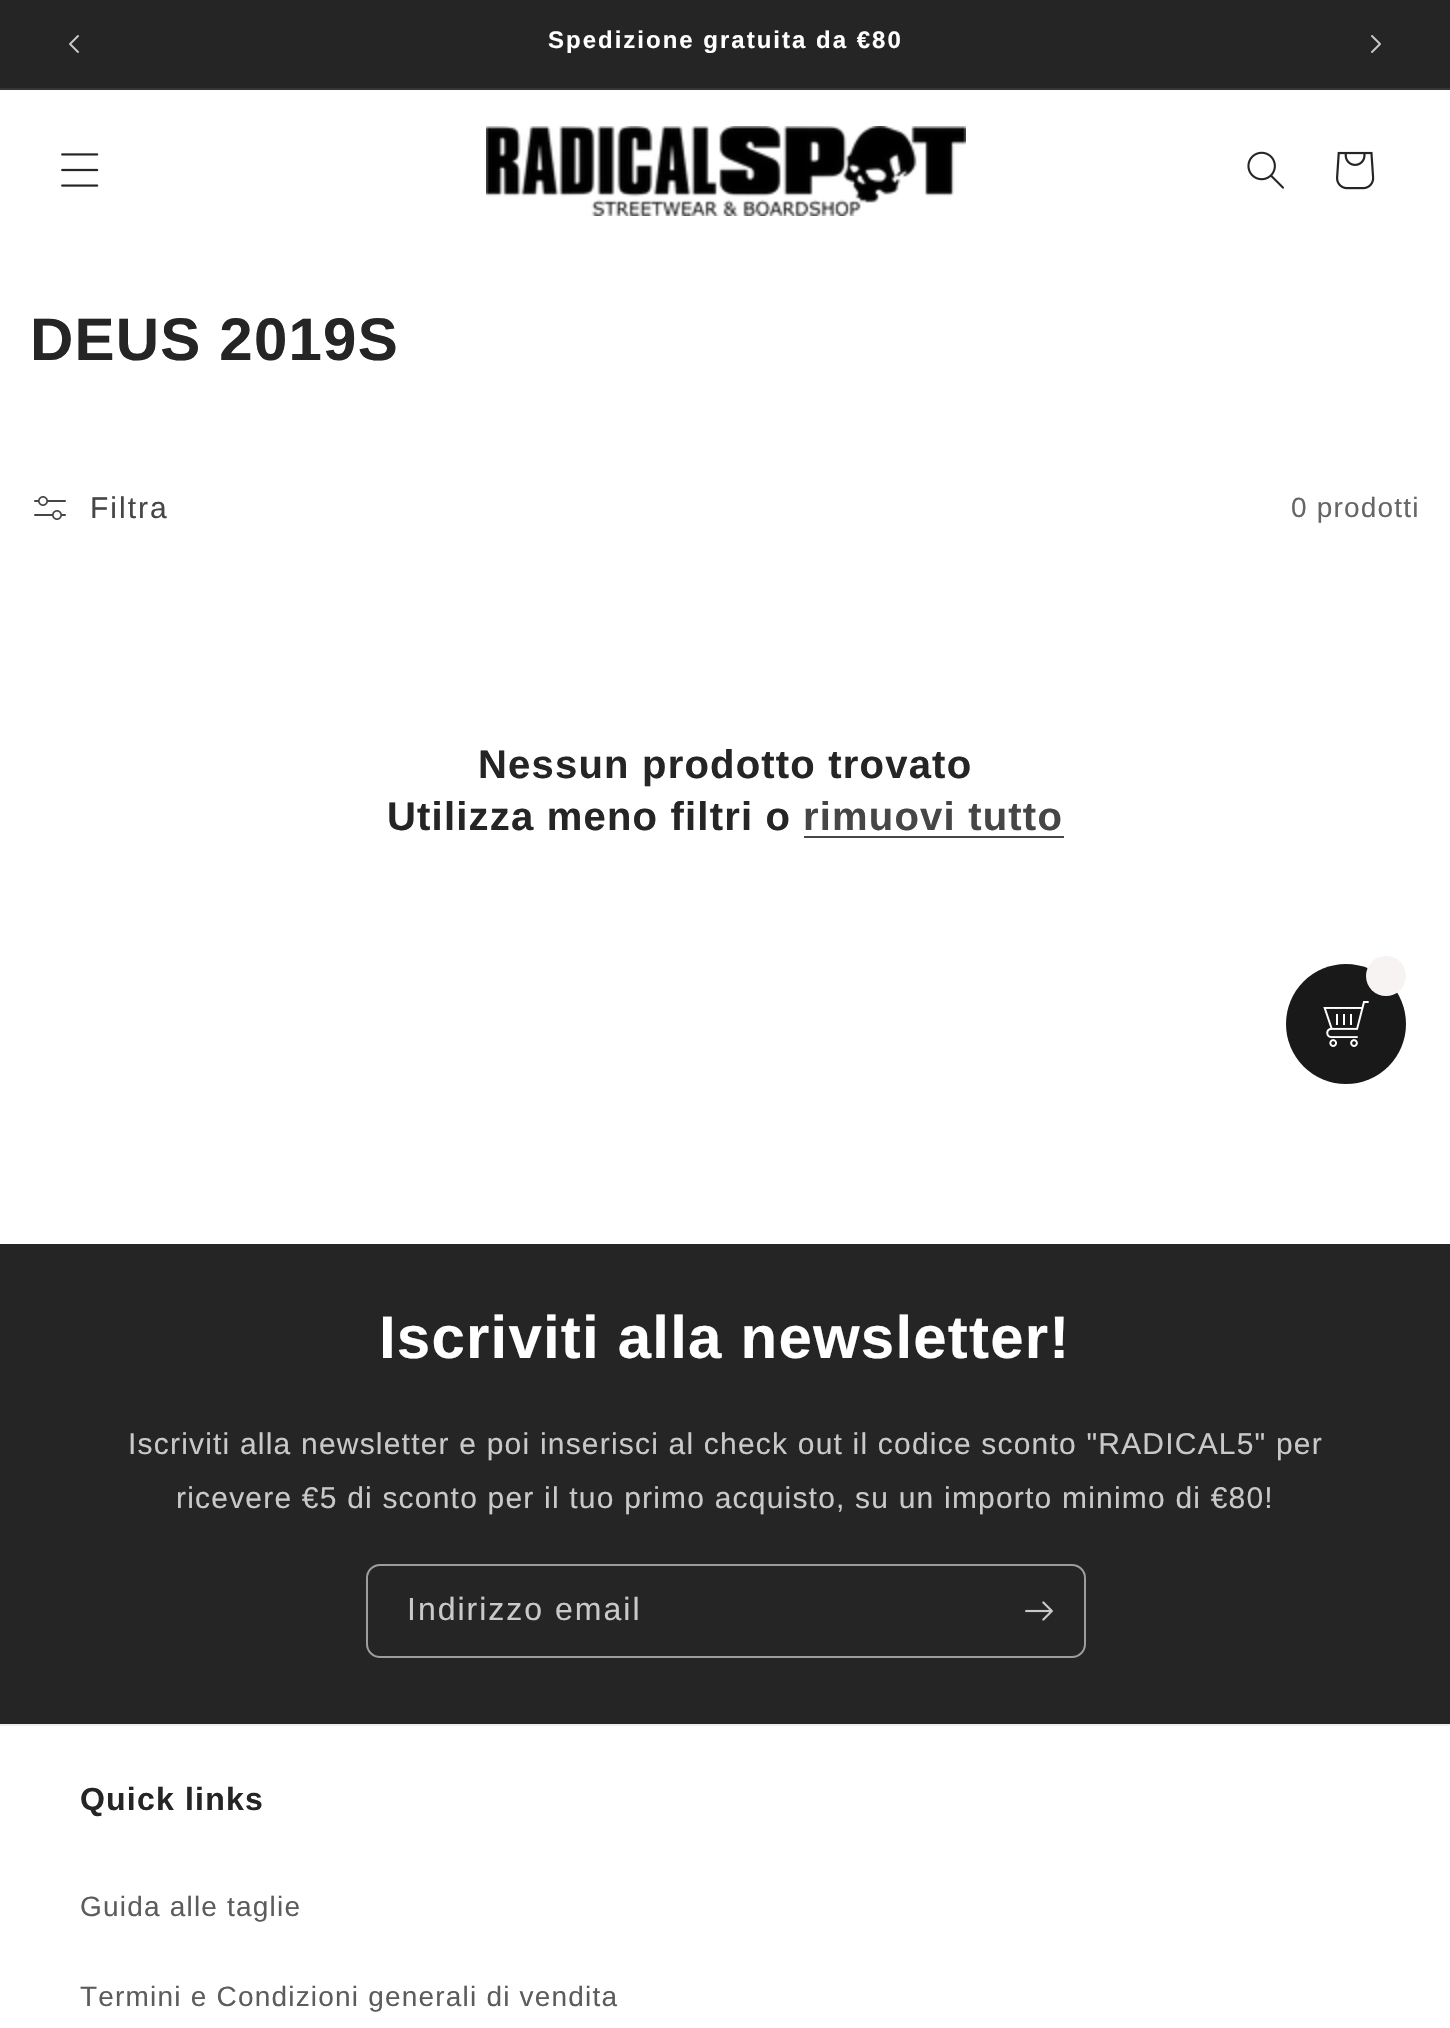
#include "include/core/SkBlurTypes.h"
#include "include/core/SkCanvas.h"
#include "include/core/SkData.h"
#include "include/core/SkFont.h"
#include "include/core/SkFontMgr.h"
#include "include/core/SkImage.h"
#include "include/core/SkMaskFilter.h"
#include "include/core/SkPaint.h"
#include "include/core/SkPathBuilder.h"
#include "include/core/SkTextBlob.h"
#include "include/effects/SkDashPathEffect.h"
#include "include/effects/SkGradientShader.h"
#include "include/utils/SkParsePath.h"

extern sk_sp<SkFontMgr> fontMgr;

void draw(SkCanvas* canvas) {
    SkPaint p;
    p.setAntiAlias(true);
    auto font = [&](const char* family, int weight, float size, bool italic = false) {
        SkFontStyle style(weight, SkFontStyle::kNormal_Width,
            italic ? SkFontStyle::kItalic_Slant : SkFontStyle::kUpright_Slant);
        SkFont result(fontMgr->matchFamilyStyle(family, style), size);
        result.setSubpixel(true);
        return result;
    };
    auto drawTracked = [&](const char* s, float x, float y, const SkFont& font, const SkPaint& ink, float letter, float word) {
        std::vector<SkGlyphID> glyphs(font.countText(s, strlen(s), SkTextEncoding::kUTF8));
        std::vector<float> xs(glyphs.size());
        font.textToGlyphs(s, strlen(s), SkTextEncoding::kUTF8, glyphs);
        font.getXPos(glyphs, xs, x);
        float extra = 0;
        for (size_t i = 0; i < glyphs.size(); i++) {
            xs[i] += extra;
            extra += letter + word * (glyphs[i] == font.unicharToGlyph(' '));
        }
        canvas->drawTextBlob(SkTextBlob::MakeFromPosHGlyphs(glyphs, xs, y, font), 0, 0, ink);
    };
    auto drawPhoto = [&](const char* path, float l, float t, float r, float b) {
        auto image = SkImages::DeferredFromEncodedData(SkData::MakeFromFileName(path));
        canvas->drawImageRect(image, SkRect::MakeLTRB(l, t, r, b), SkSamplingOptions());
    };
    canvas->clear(0xFFFFFFFF);
    p.setColor(0xFF252525);
    canvas->drawRect(SkRect::MakeLTRB(0, 0, 1450, 88), p);
    p.setColor(0xFF363636);
    canvas->drawRect(SkRect::MakeLTRB(0, 88, 1450, 90), p);
    drawPhoto("media/1.png", 69, 35, 79, 53);
    auto font1 = font("Liberation Sans", 700, 24);
    p.setColor(0xFFFFFFFF);
    drawTracked("Spedizione gratuita da €80", 548, 48, font1, p, 2, 0);
    drawPhoto("media/2.png", 1371, 35, 1381, 53);
    drawPhoto("media/3.png", 61, 153, 99, 187);
    drawPhoto("media/4.png", 486, 126, 966, 216);
    drawPhoto("media/5.png", 1247, 151, 1284, 189);
    drawPhoto("media/6.png", 1336, 151, 1375, 190);
    auto font2 = font("Liberation Sans", 700, 60);
    p.setColor(0xFF252525);
    drawTracked("DEUS 2019S", 30, 360, font2, p, 1.2f, 0);
    drawPhoto("media/7.png", 34, 496, 66, 520);
    auto font3 = font("Liberation Sans", 400, 30);
    p.setColor(0xFF464646);
    drawTracked("Filtra", 90, 518, font3, p, 2, 0);
    auto font4 = font("Liberation Sans", 400, 28);
    p.setColor(0xFF666666);
    drawTracked("0 prodotti", 1291, 517, font4, p, 1.2f, 0);
    auto font5 = font("Liberation Sans", 700, 40);
    p.setColor(0xFF252525);
    drawTracked("Nessun prodotto trovato", 478, 778, font5, p, 1.2f, 0);
    drawTracked("Utilizza meno filtri o", 387, 830, font5, p, 1.2f, 0);
    p.setColor(0xFF464646);
    drawTracked("rimuovi tutto", 803, 830, font5, p, 1.2f, 0);
    canvas->drawRect(SkRect::MakeLTRB(804, 836, 1064, 838), p);
    p.setColor(0xFF191919);
    canvas->drawCircle(1346, 1024, 60, p);
    p.setColor(0xFFF7F3F3);
    canvas->drawCircle(1386, 976, 20, p);
    drawPhoto("media/8.png", 1323, 1001, 1369, 1047);
    p.setColor(0xFF252525);
    canvas->drawRect(SkRect::MakeLTRB(0, 1244, 1450, 1724), p);
    p.setColor(0xFFFFFFFF);
    drawTracked("Iscriviti alla newsletter!", 379, 1358, font2, p, 1.2f, 0);
    p.setColor(0xFFC9C9C9);
    drawTracked("Iscriviti alla newsletter e poi inserisci al check out il codice sconto \"RADICAL5\" per", 128, 1454, font3, p, 1.2f, 0);
    drawTracked("ricevere €5 di sconto per il tuo primo acquisto, su un importo minimo di €80!", 176, 1508, font3, p, 1.2f, 0);
    p.setStyle(SkPaint::kStroke_Style);
    p.setStrokeWidth(2);
    p.setColor(0xFF9D9D9D);
    canvas->drawRoundRect(SkRect::MakeLTRB(367, 1565, 1085, 1657), 13, 13, p);
    auto font6 = font("Liberation Sans", 400, 32);
    p.setStyle(SkPaint::kFill_Style);
    p.setColor(0xFFC9C9C9);
    drawTracked("Indirizzo email", 407, 1620, font6, p, 2, 0);
    drawPhoto("media/9.png", 1025, 1601, 1053, 1621);
    p.setColor(0xFFEEEEEE);
    canvas->drawRect(SkRect::MakeLTRB(0, 1724, 1450, 1726), p);
    auto font7 = font("Liberation Sans", 700, 32);
    p.setColor(0xFF252525);
    drawTracked("Quick links", 80, 1810, font7, p, 1.2f, 0);
    p.setColor(0xFF5C5C5C);
    drawTracked("Guida alle taglie", 80, 1916, font4, p, 1.2f, 0);
    drawTracked("Termini e Condizioni generali di vendita", 80, 2006, font4, p, 1.2f, 0);
}
